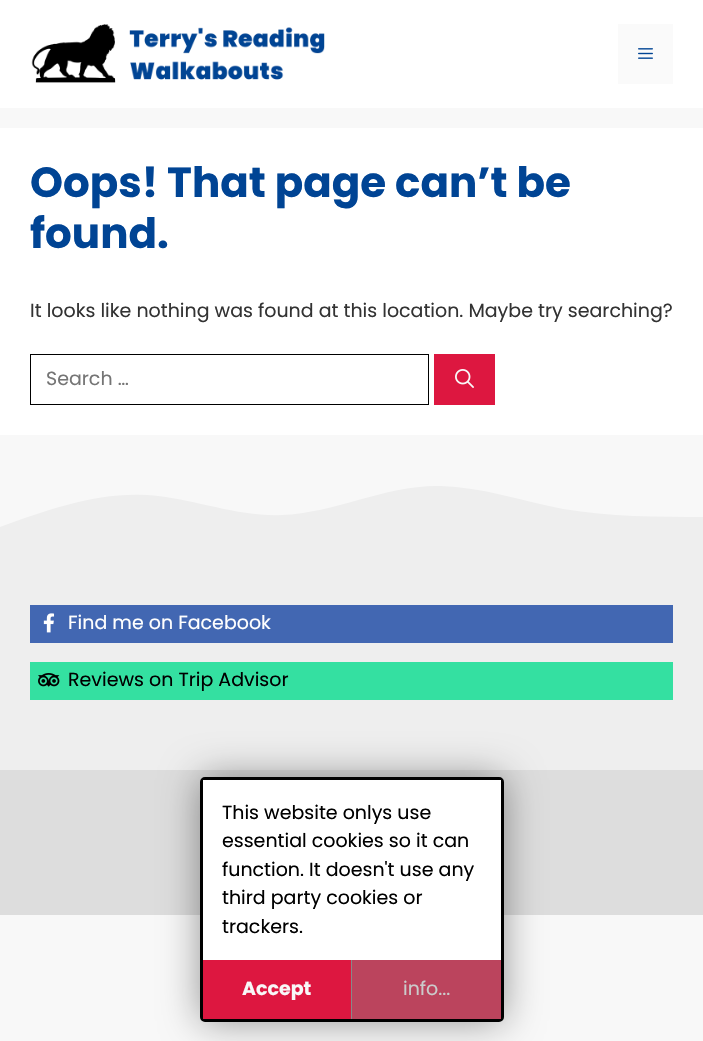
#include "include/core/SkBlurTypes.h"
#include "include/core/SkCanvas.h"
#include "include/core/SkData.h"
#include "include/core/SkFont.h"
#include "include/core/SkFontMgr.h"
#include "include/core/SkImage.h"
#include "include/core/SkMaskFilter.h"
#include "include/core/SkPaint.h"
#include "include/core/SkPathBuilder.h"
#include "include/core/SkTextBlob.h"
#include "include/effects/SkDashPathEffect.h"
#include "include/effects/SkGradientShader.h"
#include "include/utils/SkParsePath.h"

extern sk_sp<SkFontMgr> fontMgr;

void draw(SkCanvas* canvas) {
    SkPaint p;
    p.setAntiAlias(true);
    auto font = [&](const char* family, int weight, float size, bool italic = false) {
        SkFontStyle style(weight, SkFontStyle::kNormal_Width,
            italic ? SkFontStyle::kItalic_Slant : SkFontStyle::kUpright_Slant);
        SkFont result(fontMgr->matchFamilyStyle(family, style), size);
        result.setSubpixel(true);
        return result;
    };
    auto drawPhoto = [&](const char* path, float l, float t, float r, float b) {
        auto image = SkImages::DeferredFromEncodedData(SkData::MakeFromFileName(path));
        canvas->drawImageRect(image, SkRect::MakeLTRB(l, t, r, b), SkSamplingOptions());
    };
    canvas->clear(0xFFF8F8F8);
    p.setColor(0xFFFFFFFF);
    canvas->drawRect(SkRect::MakeLTRB(0, 0, 703, 108), p);
    drawPhoto("media/1.png", 31, 24, 325, 83);
    p.setColor(0xFFFAFAFA);
    canvas->drawRect(SkRect::MakeLTRB(618, 24, 673, 84), p);
    drawPhoto("media/2.png", 638, 48, 653, 59);
    p.setColor(0xFFFFFFFF);
    canvas->drawRect(SkRect::MakeLTRB(0, 128, 703, 435), p);
    auto font1 = font("Poppins", 700, 42);
    p.setColor(0xFF004494);
    canvas->drawString("Oops! That page can’t be", 30, 197, font1, p);
    canvas->drawString("found.", 30, 248, font1, p);
    auto font2 = font("Poppins", 400, 19);
    p.setColor(0xFF333333);
    canvas->drawString("It looks like nothing was found at this location. Maybe try searching?", 30, 317, font2, p);
    p.setStyle(SkPaint::kStroke_Style);
    p.setStrokeWidth(1);
    p.setColor(0xFF000000);
    canvas->drawRect(SkRect::MakeLTRB(30.5f, 354.5f, 428.5f, 404.5f), p);
    p.setStyle(SkPaint::kFill_Style);
    p.setColor(0xFF757575);
    canvas->drawString("Search …", 46, 385, font2, p);
    p.setColor(0xFFDD1740);
    canvas->drawRect(SkRect::MakeLTRB(434, 354, 495, 405), p);
    drawPhoto("media/3.png", 455, 369, 474, 388);
    p.setColor(0xFFEEEEEE);
    canvas->drawPath(SkPathBuilder().moveTo(0, 527).cubicTo(51, 509, 102, 490, 158, 496).cubicTo(200, 501, 240, 517, 282, 515).cubicTo(336, 513, 385, 485, 440, 486).cubicTo(482, 487, 522, 501, 563, 509).cubicTo(610, 517, 657, 517, 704, 517).lineTo(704, 536).lineTo(0, 536).close().detach(), p);
    canvas->drawRect(SkRect::MakeLTRB(0, 536, 703, 770), p);
    p.setColor(0xFF4267B2);
    canvas->drawRect(SkRect::MakeLTRB(30, 605, 673, 643), p);
    drawPhoto("media/4.png", 43, 613, 55, 633);
    p.setColor(0xFFFFFFFF);
    canvas->drawString("Find me on Facebook", 68, 629, font2, p);
    p.setColor(0xFF34E0A1);
    canvas->drawRect(SkRect::MakeLTRB(30, 662, 673, 700), p);
    drawPhoto("media/5.png", 38, 673, 60, 687);
    p.setColor(0xFF000000);
    canvas->drawString("Reviews on Trip Advisor", 68, 686, font2, p);
    p.setColor(0xFFDDDDDD);
    canvas->drawRect(SkRect::MakeLTRB(0, 770, 703, 915), p);
    p.setColor(0x66000000);
    p.setMaskFilter(SkMaskFilter::MakeBlur(kNormal_SkBlurStyle, 19));
    canvas->drawRoundRect(SkRect::MakeLTRB(200, 777, 504, 1022), 5, 5, p);
    p.setMaskFilter(nullptr);
    p.setStyle(SkPaint::kStroke_Style);
    p.setStrokeWidth(3);
    p.setColor(0xFF000000);
    canvas->drawRoundRect(SkRect::MakeLTRB(201.5f, 778.5f, 502.5f, 1020.5f), 3.5f, 3.5f, p);
    p.setStyle(SkPaint::kFill_Style);
    p.setColor(0xFFFFFFFF);
    canvas->drawRect(SkRect::MakeLTRB(203, 780, 501, 960), p);
    p.setColor(0xFF000000);
    {
        const struct { const char* s; float x, y; } items[] = {
            {"This website onlys use", 222, 819},
            {"essential cookies so it can", 222, 847},
            {"function. It doesn't use any", 222, 876},
            {"third party cookies or", 222, 904},
            {"trackers.", 222, 933},
        };
        for (auto [s, x, y] : items) {
            canvas->drawString(s, x, y, font2, p);
        }
    }
    p.setColor(0xFF888888);
    canvas->drawRect(SkRect::MakeLTRB(351, 960, 352, 1019), p);
    p.setColor(0xFFDD1740);
    canvas->drawRect(SkRect::MakeLTRB(203, 960, 351, 1019), p);
    auto font3 = font("Poppins", 700, 19);
    p.setColor(0xFFF8F8F8);
    canvas->drawString("Accept", 242, 995, font3, p);
    p.setColor(0xFFBB445D);
    canvas->drawRect(SkRect::MakeLTRB(352, 960, 501, 1019), p);
    p.setColor(0xFFCBCBCB);
    canvas->drawString("info...", 403, 995, font2, p);
}
